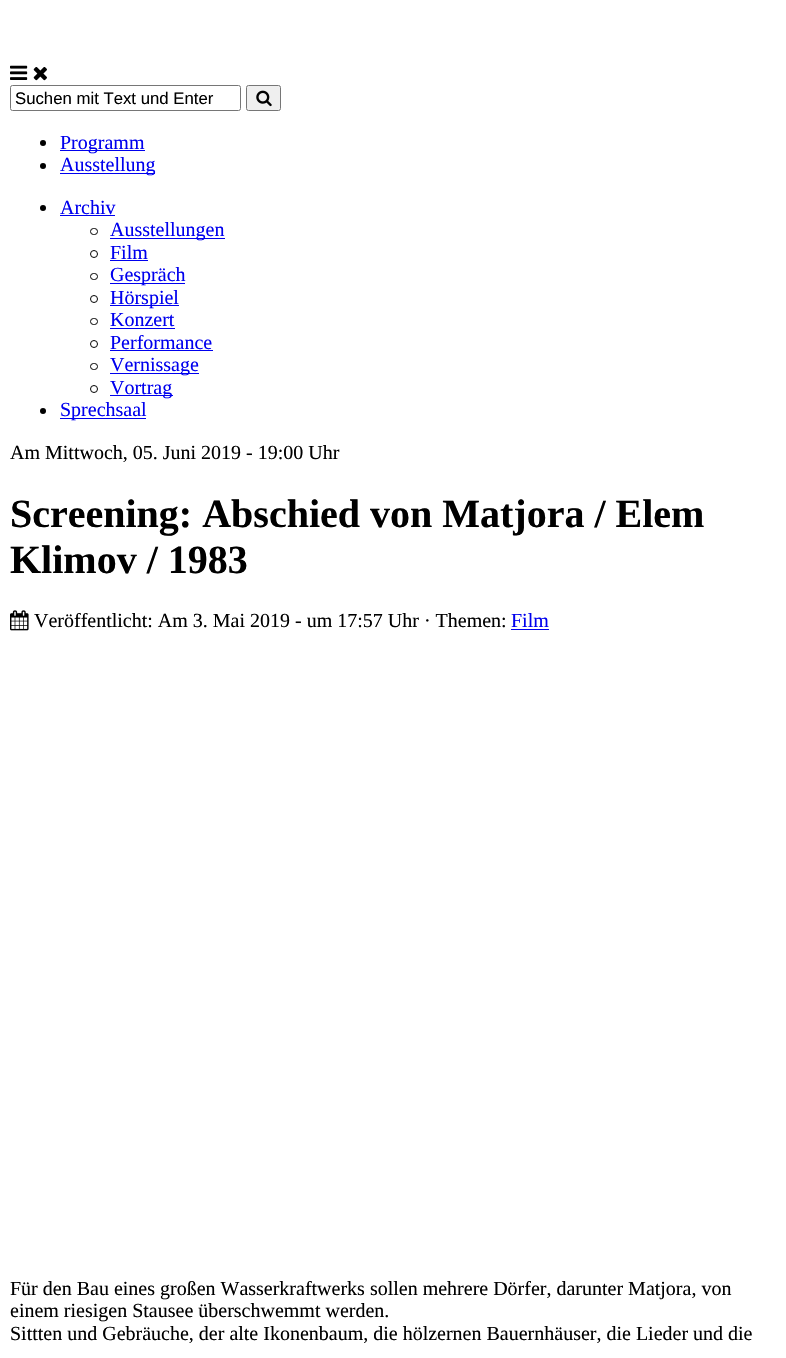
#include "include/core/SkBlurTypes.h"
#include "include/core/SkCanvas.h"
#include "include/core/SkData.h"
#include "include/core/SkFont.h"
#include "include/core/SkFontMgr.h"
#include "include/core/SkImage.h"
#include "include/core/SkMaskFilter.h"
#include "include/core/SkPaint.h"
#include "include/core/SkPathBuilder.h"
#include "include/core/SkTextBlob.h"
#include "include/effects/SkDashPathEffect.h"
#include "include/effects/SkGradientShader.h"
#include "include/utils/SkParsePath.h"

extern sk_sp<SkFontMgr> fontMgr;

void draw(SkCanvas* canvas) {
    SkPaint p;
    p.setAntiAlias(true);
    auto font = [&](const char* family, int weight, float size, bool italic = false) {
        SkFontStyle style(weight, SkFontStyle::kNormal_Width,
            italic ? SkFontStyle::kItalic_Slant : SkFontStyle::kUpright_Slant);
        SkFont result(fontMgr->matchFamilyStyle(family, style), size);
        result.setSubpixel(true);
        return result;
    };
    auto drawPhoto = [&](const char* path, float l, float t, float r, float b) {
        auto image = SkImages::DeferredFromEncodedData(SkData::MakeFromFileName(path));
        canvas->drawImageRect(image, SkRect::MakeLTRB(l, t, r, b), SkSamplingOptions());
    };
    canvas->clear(0xFFFFFFFF);
    drawPhoto("media/1.png", 10, 65, 28, 80);
    drawPhoto("media/2.png", 33, 67, 47, 81);
    p.setStyle(SkPaint::kStroke_Style);
    p.setStrokeWidth(1);
    p.setColor(0xFF767676);
    canvas->drawRoundRect(SkRect::MakeLTRB(10.5f, 85.5f, 240.5f, 110.5f), 2, 2, p);
    auto font1 = font("Liberation Sans", 400, 16.75f);
    p.setStyle(SkPaint::kFill_Style);
    p.setColor(0xFF000000);
    canvas->drawString("Suchen mit Text und Enter", 15, 104, font1, p);
    p.setColor(0xFFEFEFEF);
    canvas->drawRoundRect(SkRect::MakeLTRB(246.5f, 85.5f, 280.5f, 110.5f), 2, 2, p);
    p.setStyle(SkPaint::kStroke_Style);
    p.setColor(0xFF767676);
    canvas->drawRoundRect(SkRect::MakeLTRB(246.5f, 85.5f, 280.5f, 110.5f), 2, 2, p);
    drawPhoto("media/3.png", 256, 90, 272, 107);
    p.setStyle(SkPaint::kFill_Style);
    p.setColor(0xFF000000);
    canvas->drawCircle(43, 143, 3, p);
    p.setColor(0xFF0000EE);
    canvas->drawRect(SkRect::MakeLTRB(60, 150, 145, 151), p);
    auto font2 = font("Liberation Serif", 400, 20);
    canvas->drawString("Programm", 60, 149, font2, p);
    p.setColor(0xFF000000);
    canvas->drawCircle(43, 166, 3, p);
    p.setColor(0xFF0000EE);
    canvas->drawRect(SkRect::MakeLTRB(60, 173, 155, 174), p);
    canvas->drawString("Ausstellung", 60, 171, font2, p);
    p.setColor(0xFF000000);
    canvas->drawCircle(43, 208, 3, p);
    p.setColor(0xFF0000EE);
    canvas->drawString("Archiv", 60, 214, font2, p);
    canvas->drawRect(SkRect::MakeLTRB(60, 215, 115, 216), p);
    p.setStyle(SkPaint::kStroke_Style);
    p.setColor(0xFF000000);
    canvas->drawRoundRect(SkRect::MakeLTRB(90.5f, 228.5f, 97.5f, 234.5f), 3, 3, p);
    p.setStyle(SkPaint::kFill_Style);
    p.setColor(0xFF0000EE);
    canvas->drawRect(SkRect::MakeLTRB(110, 238, 225, 239), p);
    canvas->drawString("Ausstellungen", 110, 236, font2, p);
    p.setStyle(SkPaint::kStroke_Style);
    p.setColor(0xFF000000);
    canvas->drawCircle(94, 254, 3.5f, p);
    p.setStyle(SkPaint::kFill_Style);
    p.setColor(0xFF0000EE);
    canvas->drawString("Film", 110, 259, font2, p);
    canvas->drawRect(SkRect::MakeLTRB(110, 260, 148, 261), p);
    p.setStyle(SkPaint::kStroke_Style);
    p.setColor(0xFF000000);
    canvas->drawRoundRect(SkRect::MakeLTRB(90.5f, 273.5f, 97.5f, 279.5f), 3, 3, p);
    p.setStyle(SkPaint::kFill_Style);
    p.setColor(0xFF0000EE);
    canvas->drawRect(SkRect::MakeLTRB(110, 283, 185, 284), p);
    canvas->drawString("Gespräch", 110, 281, font2, p);
    p.setStyle(SkPaint::kStroke_Style);
    p.setColor(0xFF000000);
    canvas->drawCircle(94, 299, 3.5f, p);
    p.setStyle(SkPaint::kFill_Style);
    p.setColor(0xFF0000EE);
    canvas->drawRect(SkRect::MakeLTRB(110, 305, 179, 306), p);
    canvas->drawString("Hörspiel", 110, 304, font2, p);
    p.setStyle(SkPaint::kStroke_Style);
    p.setColor(0xFF000000);
    canvas->drawRoundRect(SkRect::MakeLTRB(90.5f, 318.5f, 97.5f, 324.5f), 3, 3, p);
    p.setStyle(SkPaint::kFill_Style);
    p.setColor(0xFF0000EE);
    canvas->drawString("Konzert", 110, 326, font2, p);
    canvas->drawRect(SkRect::MakeLTRB(110, 328, 175, 329), p);
    p.setStyle(SkPaint::kStroke_Style);
    p.setColor(0xFF000000);
    canvas->drawCircle(94, 344, 3.5f, p);
    p.setStyle(SkPaint::kFill_Style);
    p.setColor(0xFF0000EE);
    canvas->drawString("Performance", 110, 349, font2, p);
    canvas->drawRect(SkRect::MakeLTRB(110, 350, 213, 351), p);
    p.setStyle(SkPaint::kStroke_Style);
    p.setColor(0xFF000000);
    canvas->drawRoundRect(SkRect::MakeLTRB(90.5f, 363.5f, 97.5f, 369.5f), 3, 3, p);
    p.setStyle(SkPaint::kFill_Style);
    p.setColor(0xFF0000EE);
    canvas->drawRect(SkRect::MakeLTRB(110, 373, 199, 374), p);
    canvas->drawString("Vernissage", 110, 371, font2, p);
    p.setStyle(SkPaint::kStroke_Style);
    p.setColor(0xFF000000);
    canvas->drawCircle(94, 389, 3.5f, p);
    p.setStyle(SkPaint::kFill_Style);
    p.setColor(0xFF0000EE);
    canvas->drawRect(SkRect::MakeLTRB(110, 395, 173, 396), p);
    canvas->drawString("Vortrag", 110, 394, font2, p);
    p.setColor(0xFF000000);
    canvas->drawCircle(43, 411, 3, p);
    p.setColor(0xFF0000EE);
    canvas->drawRect(SkRect::MakeLTRB(60, 418, 146, 419), p);
    canvas->drawString("Sprechsaal", 60, 416, font2, p);
    p.setColor(0xFF000000);
    canvas->drawString("Am Mittwoch, 05. Juni 2019 - 19:00 Uhr", 10, 459, font2, p);
    auto font3 = font("Liberation Serif", 700, 40);
    canvas->drawString("Screening: Abschied von Matjora / Elem", 10, 527, font3, p);
    canvas->drawString("Klimov / 1983", 10, 573, font3, p);
    drawPhoto("media/4.png", 10, 610, 29, 631);
    canvas->drawString("Veröffentlicht: Am 3. Mai 2019 - um 17:57 Uhr · Themen:", 34, 627, font2, p);
    p.setColor(0xFF0000EE);
    canvas->drawString("Film", 511, 627, font2, p);
    canvas->drawRect(SkRect::MakeLTRB(511, 629, 549, 630), p);
    p.setColor(0xFF000000);
    {
        const struct { const char* s; float x, y; } items[] = {
            {"Für den Bau eines großen Wasserkraftwerks sollen mehrere Dörfer, darunter Matjora, von", 10, 1295},
            {"einem riesigen Stausee überschwemmt werden.", 10, 1317},
            {"Sittten und Gebräuche, der alte Ikonenbaum, die hölzernen Bauernhäuser, die Lieder und die", 10, 1340},
        };
        for (auto [s, x, y] : items) {
            canvas->drawString(s, x, y, font2, p);
        }
    }
}
